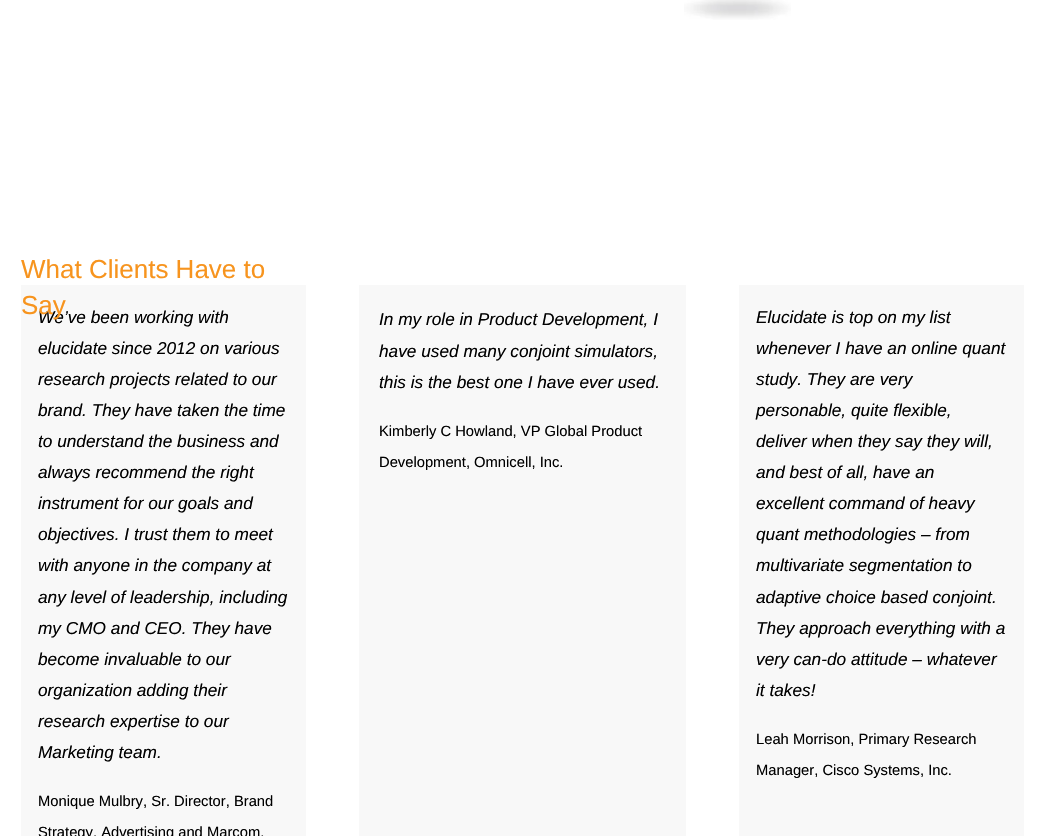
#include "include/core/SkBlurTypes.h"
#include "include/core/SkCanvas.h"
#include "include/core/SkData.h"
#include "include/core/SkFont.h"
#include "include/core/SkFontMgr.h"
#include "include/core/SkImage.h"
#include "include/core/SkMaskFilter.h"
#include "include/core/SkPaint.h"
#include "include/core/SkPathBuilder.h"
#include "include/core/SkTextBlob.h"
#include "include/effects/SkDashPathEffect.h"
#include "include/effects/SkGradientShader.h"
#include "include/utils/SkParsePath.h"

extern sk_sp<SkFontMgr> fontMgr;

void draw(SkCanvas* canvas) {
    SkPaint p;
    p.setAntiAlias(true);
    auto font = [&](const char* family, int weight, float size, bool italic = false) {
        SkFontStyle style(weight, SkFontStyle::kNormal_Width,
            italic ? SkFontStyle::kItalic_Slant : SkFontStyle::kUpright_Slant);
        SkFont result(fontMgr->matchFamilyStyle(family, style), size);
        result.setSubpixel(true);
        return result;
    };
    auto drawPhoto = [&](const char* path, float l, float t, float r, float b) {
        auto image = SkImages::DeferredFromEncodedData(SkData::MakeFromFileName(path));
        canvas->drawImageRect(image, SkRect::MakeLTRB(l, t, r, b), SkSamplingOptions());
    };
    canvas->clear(0xFFFFFFFF);
    drawPhoto("media/1.png", 684, 0, 791, 20);
    auto font1 = font("Liberation Sans", 400, 26);
    p.setColor(0xFFF7941E);
    canvas->drawString("What Clients Have to", 21, 278, font1, p);
    p.setColor(0xFFF8F8F8);
    canvas->drawRect(SkRect::MakeLTRB(21, 285, 306, 836), p);
    auto font2 = font("Liberation Sans", 400, 17.25f, true);
    p.setColor(0xFF000000);
    canvas->drawString("We’ve been working with", 38, 323, font2, p);
    p.setColor(0xFFF7941E);
    canvas->drawString("Say", 21, 314, font1, p);
    p.setColor(0xFF000000);
    {
        const struct { const char* s; float x, y; } items[] = {
            {"elucidate since 2012 on various", 38, 354},
            {"research projects related to our", 38, 385},
            {"brand. They have taken the time", 38, 416},
            {"to understand the business and", 38, 447},
            {"always recommend the right", 38, 478},
            {"instrument for our goals and", 38, 509},
            {"objectives. I trust them to meet", 38, 540},
            {"with anyone in the company at", 38, 571},
            {"any level of leadership, including", 38, 603},
            {"my CMO and CEO. They have", 38, 634},
            {"become invaluable to our", 38, 665},
            {"organization adding their", 38, 696},
            {"research expertise to our", 38, 727},
            {"Marketing team.", 38, 758},
        };
        for (auto [s, x, y] : items) {
            canvas->drawString(s, x, y, font2, p);
        }
    }
    auto font3 = font("Liberation Sans", 400, 14.75f);
    canvas->drawString("Monique Mulbry, Sr. Director, Brand", 38, 806, font3, p);
    canvas->drawString("Strategy, Advertising and Marcom,", 38, 837, font3, p);
    p.setColor(0xFFF8F8F8);
    canvas->drawRect(SkRect::MakeLTRB(359, 285, 686, 836), p);
    p.setColor(0xFF000000);
    {
        const struct { const char* s; float x, y; } items[] = {
            {"In my role in Product Development, I", 379, 325},
            {"have used many conjoint simulators,", 379, 357},
            {"this is the best one I have ever used.", 379, 388},
        };
        for (auto [s, x, y] : items) {
            canvas->drawString(s, x, y, font2, p);
        }
    }
    canvas->drawString("Kimberly C Howland, VP Global Product", 379, 436, font3, p);
    canvas->drawString("Development, Omnicell, Inc.", 379, 467, font3, p);
    p.setColor(0xFFF8F8F8);
    canvas->drawRect(SkRect::MakeLTRB(739, 285, 1024, 836), p);
    p.setColor(0xFF000000);
    {
        const struct { const char* s; float x, y; } items[] = {
            {"Elucidate is top on my list", 756, 323},
            {"whenever I have an online quant", 756, 354},
            {"study. They are very", 756, 385},
            {"personable, quite flexible,", 756, 416},
            {"deliver when they say they will,", 756, 447},
            {"and best of all, have an", 756, 478},
            {"excellent command of heavy", 756, 509},
            {"quant methodologies – from", 756, 540},
            {"multivariate segmentation to", 756, 571},
            {"adaptive choice based conjoint.", 756, 603},
            {"They approach everything with a", 756, 634},
            {"very can-do attitude – whatever", 756, 665},
            {"it takes!", 756, 696},
        };
        for (auto [s, x, y] : items) {
            canvas->drawString(s, x, y, font2, p);
        }
    }
    canvas->drawString("Leah Morrison, Primary Research", 756, 744, font3, p);
    canvas->drawString("Manager, Cisco Systems, Inc.", 756, 775, font3, p);
}
